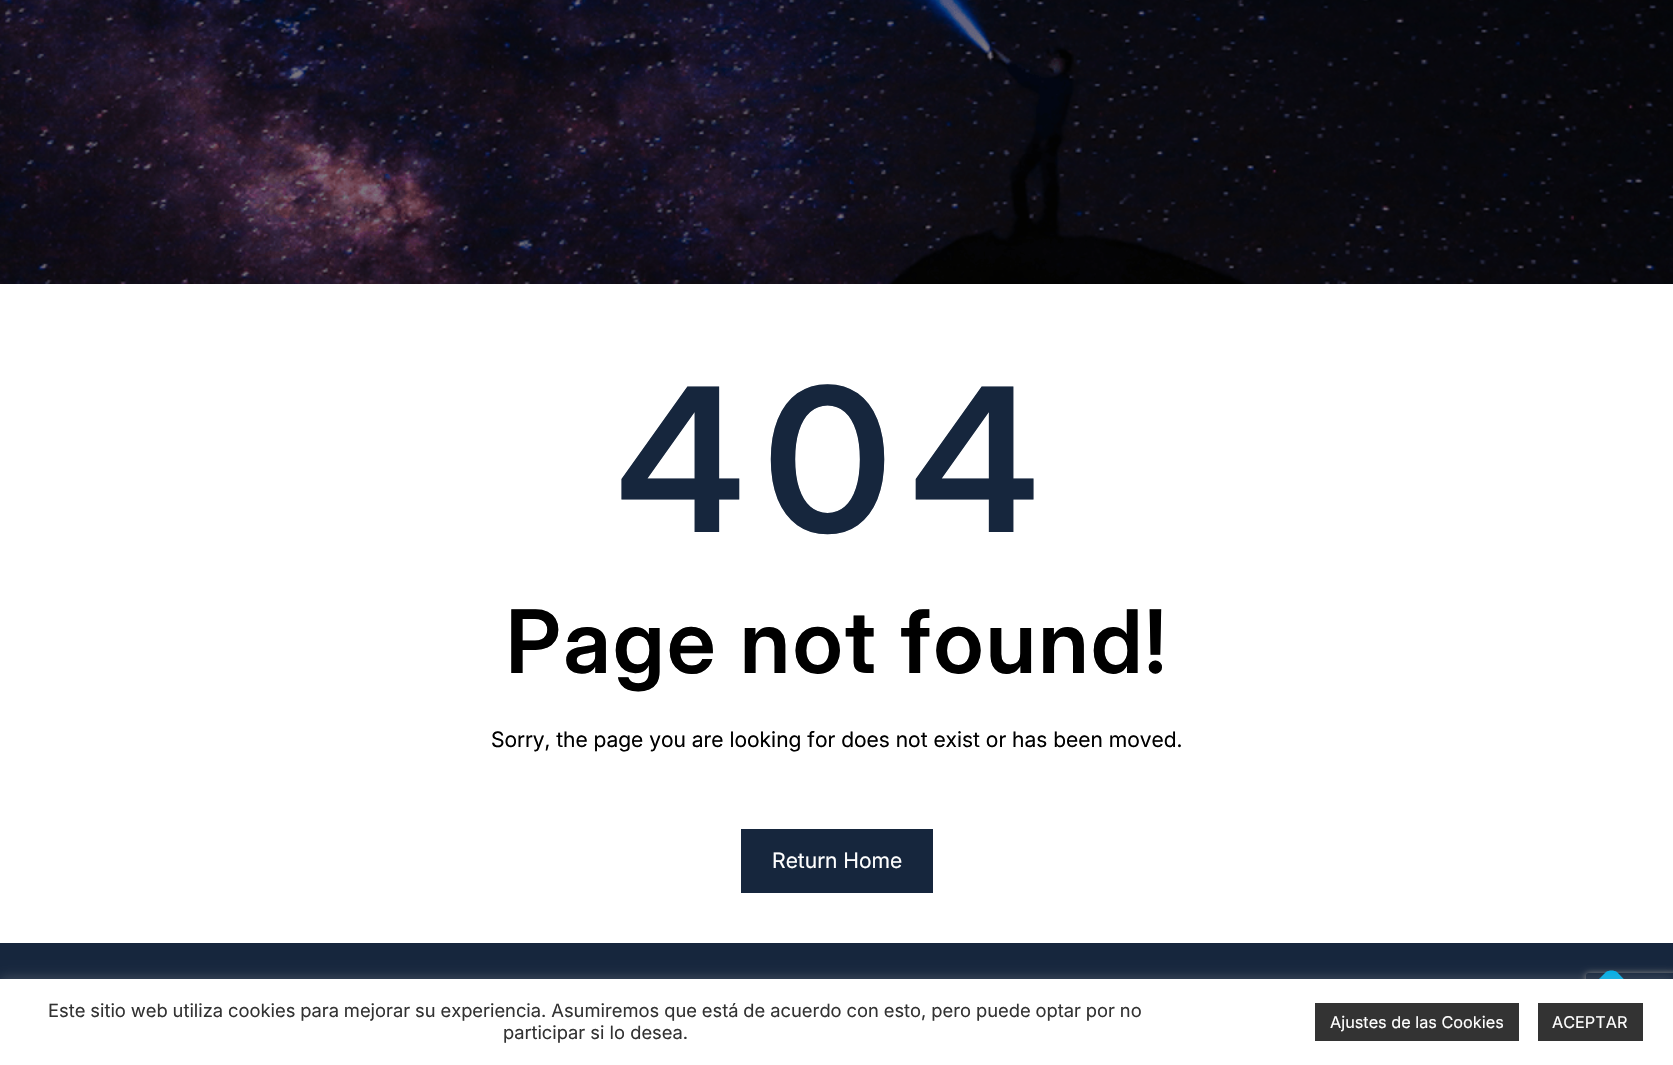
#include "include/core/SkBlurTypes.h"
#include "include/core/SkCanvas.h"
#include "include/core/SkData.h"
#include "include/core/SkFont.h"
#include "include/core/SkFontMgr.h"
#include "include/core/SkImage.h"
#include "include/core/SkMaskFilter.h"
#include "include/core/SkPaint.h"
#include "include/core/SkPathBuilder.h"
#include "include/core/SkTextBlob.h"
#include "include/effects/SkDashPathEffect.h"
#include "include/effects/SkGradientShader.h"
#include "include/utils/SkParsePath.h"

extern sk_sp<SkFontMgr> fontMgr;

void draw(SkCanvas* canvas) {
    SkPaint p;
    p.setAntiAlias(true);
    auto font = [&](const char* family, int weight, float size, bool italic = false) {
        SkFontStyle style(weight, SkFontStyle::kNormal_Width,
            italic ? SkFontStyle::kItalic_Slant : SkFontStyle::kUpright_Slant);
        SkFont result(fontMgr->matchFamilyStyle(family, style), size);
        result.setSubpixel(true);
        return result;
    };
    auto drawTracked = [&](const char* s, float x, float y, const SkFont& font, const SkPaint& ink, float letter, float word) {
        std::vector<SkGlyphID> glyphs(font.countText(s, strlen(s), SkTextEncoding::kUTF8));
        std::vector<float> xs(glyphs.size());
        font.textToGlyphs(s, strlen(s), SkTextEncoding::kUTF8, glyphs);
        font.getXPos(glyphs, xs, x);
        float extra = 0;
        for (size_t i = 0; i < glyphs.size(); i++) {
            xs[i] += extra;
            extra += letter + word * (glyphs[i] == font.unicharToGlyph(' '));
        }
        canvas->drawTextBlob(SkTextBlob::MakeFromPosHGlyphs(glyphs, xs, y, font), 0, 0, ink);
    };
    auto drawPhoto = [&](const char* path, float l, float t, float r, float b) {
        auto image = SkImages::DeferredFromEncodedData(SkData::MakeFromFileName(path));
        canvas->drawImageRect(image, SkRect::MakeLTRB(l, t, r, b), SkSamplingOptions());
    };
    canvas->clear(0xFFFFFFFF);
    drawPhoto("media/1.png", 0, 0, 1673, 284);
    auto font1 = font("Inter", 600, 200);
    p.setColor(0xFF16263D);
    drawTracked("404", 616, 532, font1, p, 19, 0);
    auto font2 = font("Inter", 600, 87.5f);
    p.setColor(0xFF000000);
    drawTracked("Page not found!", 506, 673, font2, p, 2.5f, 0);
    auto font3 = font("Inter", 400, 21.25f);
    canvas->drawString("Sorry, the page you are looking for does not exist or has been moved.", 491, 747, font3, p);
    p.setColor(0xFF16263D);
    canvas->drawRect(SkRect::MakeLTRB(741, 829, 933, 893), p);
    p.setColor(0xFFFFFFFF);
    canvas->drawString("Return Home", 772, 868, font3, p);
    p.setColor(0xFF16263D);
    canvas->drawRect(SkRect::MakeLTRB(0, 943, 1673, 979), p);
    canvas->save();
    canvas->clipPath(SkPathBuilder(SkPathFillType::kEvenOdd).moveTo(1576, 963).lineTo(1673, 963).lineTo(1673, 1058).lineTo(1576, 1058).close().moveTo(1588.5f, 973).lineTo(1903.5f, 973).cubicTo(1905, 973, 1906, 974, 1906, 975.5f).lineTo(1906, 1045.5f).cubicTo(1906, 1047, 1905, 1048, 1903.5f, 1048).lineTo(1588.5f, 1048).cubicTo(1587, 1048, 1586, 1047, 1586, 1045.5f).lineTo(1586, 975.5f).cubicTo(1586, 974, 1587, 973, 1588.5f, 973).close().detach(), true);
    p.setColor(0xFF808080);
    p.setMaskFilter(SkMaskFilter::MakeBlur(kNormal_SkBlurStyle, 3));
    canvas->drawRoundRect(SkRect::MakeLTRB(1586, 973, 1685, 1048), 2.5f, 2.5f, p);
    p.setMaskFilter(nullptr);
    canvas->restore();
    p.setColor(0xFF00AFE8);
    canvas->drawPath(SkPathBuilder().moveTo(1581, 997).lineTo(1606, 972).cubicTo(1609, 970, 1614, 970, 1617, 972).lineTo(1641, 997).cubicTo(1644, 1000, 1644, 1005, 1641, 1008).lineTo(1617, 1033).cubicTo(1614, 1035, 1609, 1035, 1606, 1033).lineTo(1581, 1008).cubicTo(1578, 1005, 1578, 1000, 1581, 997).close().detach(), p);
    p.setColor(0x4DACABAB);
    p.setMaskFilter(SkMaskFilter::MakeBlur(kNormal_SkBlurStyle, 6));
    canvas->drawRect(SkRect::MakeLTRB(0, 978, 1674, 1064), p);
    p.setMaskFilter(nullptr);
    p.setColor(0xFFFFFFFF);
    canvas->drawRect(SkRect::MakeLTRB(0, 979, 1673, 1065), p);
    auto font4 = font("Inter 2", 400, 18.33f);
    p.setColor(0xFF333333);
    drawTracked("Este sitio web utiliza cookies para mejorar su experiencia. Asumiremos que está de acuerdo con esto, pero puede optar por no", 48, 1017, font4, p, 0, -0.25f);
    canvas->drawString("participar si lo desea.", 503, 1039, font4, p);
    canvas->drawRect(SkRect::MakeLTRB(1315, 1003, 1519, 1041), p);
    auto font5 = font("Inter 2", 400, 16.25f);
    p.setColor(0xFFFFFFFF);
    canvas->drawString("Ajustes de las Cookies", 1330, 1028, font5, p);
    p.setColor(0xFF333333);
    canvas->drawRect(SkRect::MakeLTRB(1538, 1003, 1643, 1041), p);
    p.setColor(0xFFFFFFFF);
    canvas->drawString("ACEPTAR", 1552, 1028, font5, p);
}
